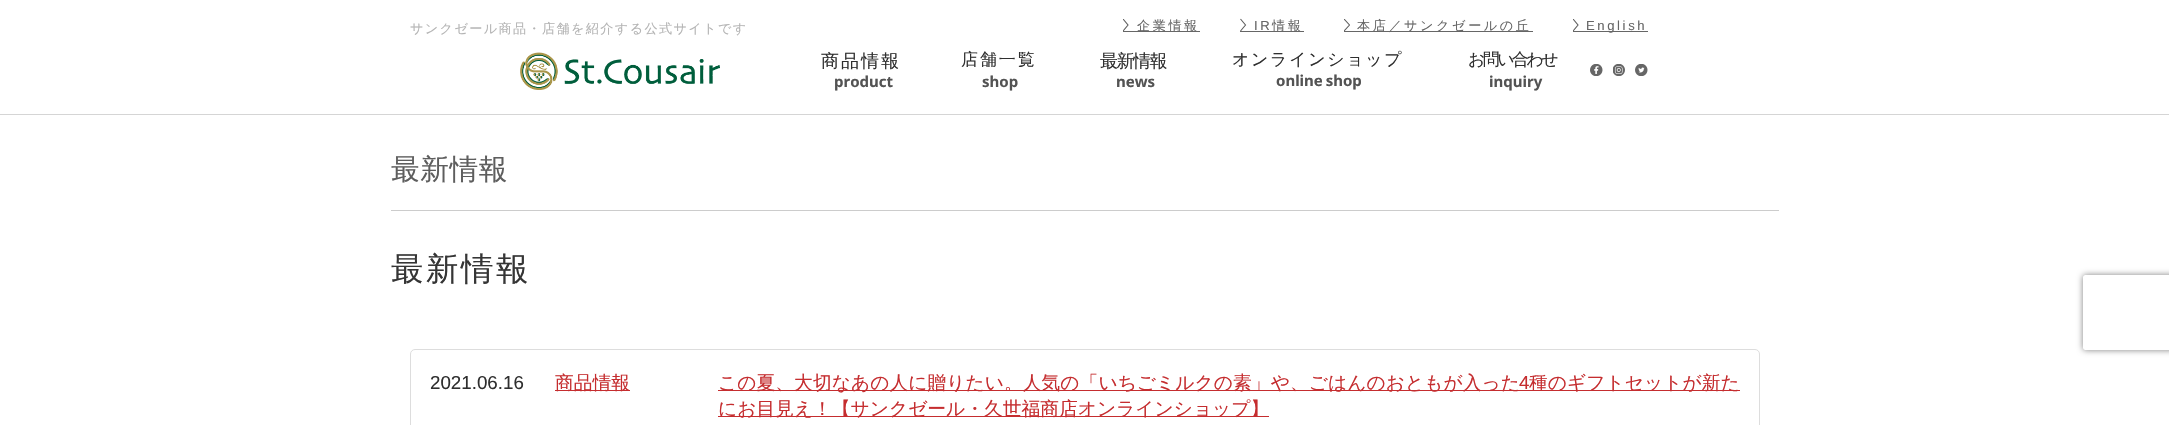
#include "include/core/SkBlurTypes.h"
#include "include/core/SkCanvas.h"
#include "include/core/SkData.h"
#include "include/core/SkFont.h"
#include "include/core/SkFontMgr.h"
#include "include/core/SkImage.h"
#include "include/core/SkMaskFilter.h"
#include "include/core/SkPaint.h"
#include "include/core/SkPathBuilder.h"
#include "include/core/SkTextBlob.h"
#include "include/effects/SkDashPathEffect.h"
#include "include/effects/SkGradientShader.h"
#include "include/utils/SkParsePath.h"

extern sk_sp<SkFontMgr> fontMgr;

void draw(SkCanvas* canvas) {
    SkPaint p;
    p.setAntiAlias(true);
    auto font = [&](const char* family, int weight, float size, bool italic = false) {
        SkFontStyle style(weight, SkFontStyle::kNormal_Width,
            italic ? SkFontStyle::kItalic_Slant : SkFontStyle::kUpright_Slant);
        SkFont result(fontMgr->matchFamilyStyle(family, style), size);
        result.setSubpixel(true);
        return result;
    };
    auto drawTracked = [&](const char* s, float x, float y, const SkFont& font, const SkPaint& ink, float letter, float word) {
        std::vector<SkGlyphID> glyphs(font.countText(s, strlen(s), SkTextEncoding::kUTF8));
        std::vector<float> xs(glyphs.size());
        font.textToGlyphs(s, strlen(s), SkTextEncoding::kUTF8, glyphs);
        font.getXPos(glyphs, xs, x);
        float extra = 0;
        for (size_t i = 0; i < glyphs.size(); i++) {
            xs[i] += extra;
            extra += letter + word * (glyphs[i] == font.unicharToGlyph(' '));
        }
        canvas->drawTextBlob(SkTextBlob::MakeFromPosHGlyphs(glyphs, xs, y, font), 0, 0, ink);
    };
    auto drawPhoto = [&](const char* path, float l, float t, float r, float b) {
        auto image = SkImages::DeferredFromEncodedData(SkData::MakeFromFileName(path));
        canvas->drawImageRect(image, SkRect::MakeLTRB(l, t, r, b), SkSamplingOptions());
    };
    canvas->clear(0xFFFFFFFF);
    p.setColor(0xFFD5D5D5);
    canvas->drawRect(SkRect::MakeLTRB(0, 114, 2169, 115), p);
    auto font1 = font("WenQuanYi Zen Hei", 500, 13.1f);
    p.setColor(0xFFB4B4B4);
    drawTracked("サンクゼール商品・店舗を紹介する公式サイトです", 410, 33, font1, p, 1.4f, 0);
    drawPhoto("media/1.png", 520, 52, 720, 90);
    canvas->save();
    canvas->clipRect(SkRect::MakeLTRB(1123, 19, 1129, 31));
    p.setStyle(SkPaint::kStroke_Style);
    p.setStrokeWidth(1.1f);
    p.setColor(0xFF5E5E5E);
    canvas->drawPath(SkPathBuilder().moveTo(1123, 31).lineTo(1128, 25).lineTo(1123, 19).detach(), p);
    canvas->restore();
    p.setStyle(SkPaint::kFill_Style);
    p.setColor(0xFF666666);
    drawTracked("企業情報", 1137, 30, font1, p, 2.6f, 0);
    canvas->drawRect(SkRect::MakeLTRB(1123, 31, 1200, 32), p);
    p.setStyle(SkPaint::kStroke_Style);
    p.setColor(0xFF5E5E5E);
    canvas->drawPath(SkPathBuilder().moveTo(1240.5f, 31).lineTo(1245.5f, 25).lineTo(1240.5f, 19).detach(), p);
    auto font2 = font("Liberation Sans", 400, 13.1f);
    p.setStyle(SkPaint::kFill_Style);
    p.setColor(0xFF666666);
    drawTracked("IR", 1254, 30, font2, p, 2.6f, 0);
    drawTracked("情報", 1272, 30, font1, p, 2.6f, 0);
    canvas->drawRect(SkRect::MakeLTRB(1240, 31, 1304, 32), p);
    canvas->save();
    canvas->clipRect(SkRect::MakeLTRB(1344, 19, 1350, 31));
    p.setStyle(SkPaint::kStroke_Style);
    p.setColor(0xFF5E5E5E);
    canvas->drawPath(SkPathBuilder().moveTo(1344, 31).lineTo(1349.5f, 25).lineTo(1344, 19).detach(), p);
    canvas->restore();
    p.setStyle(SkPaint::kFill_Style);
    p.setColor(0xFF666666);
    drawTracked("本店／サンクゼールの丘", 1357, 30, font1, p, 2.6f, 0);
    canvas->drawRect(SkRect::MakeLTRB(1344, 31, 1533, 32), p);
    canvas->save();
    canvas->clipRect(SkRect::MakeLTRB(1573, 19, 1579, 31));
    p.setStyle(SkPaint::kStroke_Style);
    p.setColor(0xFF5E5E5E);
    canvas->drawPath(SkPathBuilder().moveTo(1573, 31).lineTo(1578, 25).lineTo(1573, 19).detach(), p);
    canvas->restore();
    p.setStyle(SkPaint::kFill_Style);
    p.setColor(0xFF666666);
    drawTracked("English", 1586, 30, font2, p, 2.6f, 0);
    canvas->drawRect(SkRect::MakeLTRB(1573, 31, 1648, 32), p);
    auto font3 = font("WenQuanYi Zen Hei", 500, 18);
    p.setColor(0xFF2F2F2F);
    drawTracked("商品情報", 821, 67, font3, p, 2, 0);
    auto font4 = font("Noto Sans", 700, 15);
    p.setColor(0xFF535353);
    canvas->drawString("product", 834, 87, font4, p);
    auto font5 = font("WenQuanYi Zen Hei", 500, 16.9f);
    p.setColor(0xFF2F2F2F);
    drawTracked("店舗一覧", 961, 65, font5, p, 2, 0);
    p.setColor(0xFF535353);
    canvas->drawString("shop", 982, 87, font4, p);
    p.setColor(0xFF2F2F2F);
    drawTracked("最新情報", 1100, 67, font3, p, -1.5f, 0);
    p.setColor(0xFF535353);
    canvas->drawString("news", 1116, 87, font4, p);
    p.setColor(0xFF2F2F2F);
    drawTracked("オンラインショップ", 1232, 65, font5, p, 1.75f, 0);
    p.setColor(0xFF535353);
    drawTracked("online shop", 1276, 86, font4, p, 0, -1);
    p.setColor(0xFF2F2F2F);
    drawTracked("お問い合わせ", 1468, 65, font5, p, -2.5f, 0);
    p.setColor(0xFF535353);
    canvas->drawString("inquiry", 1489, 87, font4, p);
    drawPhoto("media/2.png", 1590, 64, 1603, 76);
    drawPhoto("media/3.png", 1613, 64, 1625, 76);
    drawPhoto("media/4.png", 1635, 64, 1648, 76);
    p.setColor(0xFFCCCCCC);
    canvas->drawRect(SkRect::MakeLTRB(391, 210, 1779, 211), p);
    auto font6 = font("WenQuanYi Zen Hei", 500, 28.75f);
    p.setColor(0xFF5E5E5E);
    drawTracked("最新情報", 391, 179, font6, p, 0.5f, 0);
    auto font7 = font("WenQuanYi Zen Hei", 500, 32.5f);
    p.setColor(0xFF353535);
    drawTracked("最新情報", 391, 280, font7, p, 2.5f, 0);
    p.setStyle(SkPaint::kStroke_Style);
    p.setStrokeWidth(1);
    p.setColor(0xFFDDDDDD);
    canvas->drawPath(SkPathBuilder().moveTo(415, 349.5f).lineTo(1755, 349.5f).cubicTo(1757.5f, 349.5f, 1759.5f, 351.5f, 1759.5f, 354).lineTo(1759.5f, 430.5f).lineTo(410.5f, 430.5f).lineTo(410.5f, 354).cubicTo(410.5f, 351.5f, 412.5f, 349.5f, 415, 349.5f).close().detach(), p);
    auto font8 = font("Liberation Sans", 400, 18.75f);
    p.setStyle(SkPaint::kFill_Style);
    p.setColor(0xFF2F2F2F);
    canvas->drawString("2021.06.16", 430, 389, font8, p);
    p.setColor(0xFFC52D2F);
    canvas->drawRect(SkRect::MakeLTRB(555, 390, 630, 391), p);
    auto font9 = font("WenQuanYi Zen Hei", 500, 18.75f);
    canvas->drawString("商品情報", 555, 389, font9, p);
    canvas->drawRect(SkRect::MakeLTRB(718, 390, 1740, 391), p);
    drawTracked("この夏、大切なあの人に贈りたい。人気の「いちごミルクの素」や、ごはんのおともが入った", 718, 389, font9, p, 0.05f, 0);
    drawTracked("4", 1519, 389, font8, p, 0.05f, 0);
    drawTracked("種のギフトセットが新た", 1529, 389, font9, p, 0.05f, 0);
    canvas->drawRect(SkRect::MakeLTRB(718, 416, 1269, 417), p);
    canvas->drawString("にお目見え！【サンクゼール・久世福商店オンラインショップ】", 718, 415, font9, p);
    canvas->save();
    canvas->clipPath(SkPathBuilder(SkPathFillType::kEvenOdd).moveTo(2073, 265).lineTo(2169, 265).lineTo(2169, 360).lineTo(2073, 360).close().moveTo(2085.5f, 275).lineTo(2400.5f, 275).cubicTo(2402, 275, 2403, 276, 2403, 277.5f).lineTo(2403, 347.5f).cubicTo(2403, 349, 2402, 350, 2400.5f, 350).lineTo(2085.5f, 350).cubicTo(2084, 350, 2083, 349, 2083, 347.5f).lineTo(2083, 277.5f).cubicTo(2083, 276, 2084, 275, 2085.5f, 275).close().detach(), true);
    p.setColor(0xFF808080);
    p.setMaskFilter(SkMaskFilter::MakeBlur(kNormal_SkBlurStyle, 3));
    canvas->drawRoundRect(SkRect::MakeLTRB(2083, 275, 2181, 350), 2.5f, 2.5f, p);
    p.setMaskFilter(nullptr);
    canvas->restore();
}
